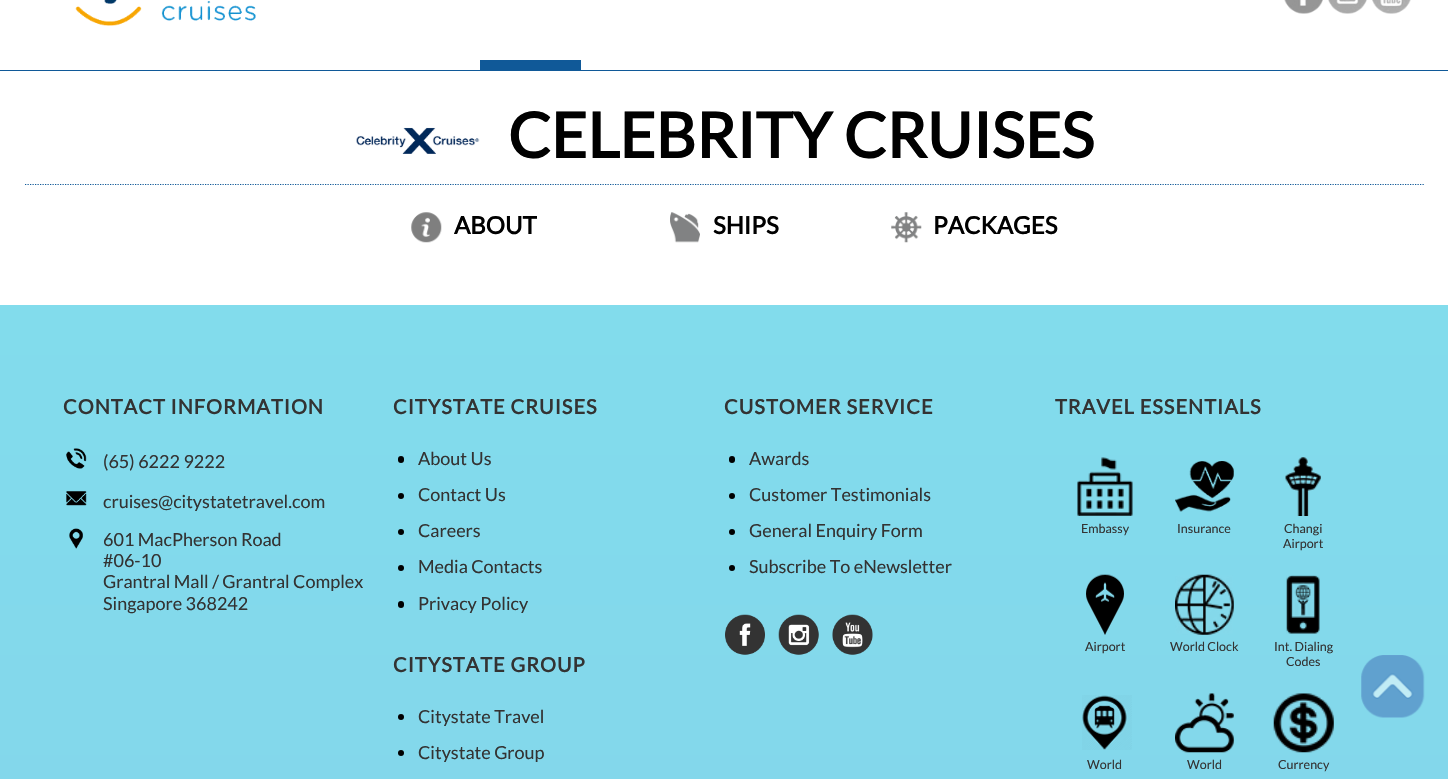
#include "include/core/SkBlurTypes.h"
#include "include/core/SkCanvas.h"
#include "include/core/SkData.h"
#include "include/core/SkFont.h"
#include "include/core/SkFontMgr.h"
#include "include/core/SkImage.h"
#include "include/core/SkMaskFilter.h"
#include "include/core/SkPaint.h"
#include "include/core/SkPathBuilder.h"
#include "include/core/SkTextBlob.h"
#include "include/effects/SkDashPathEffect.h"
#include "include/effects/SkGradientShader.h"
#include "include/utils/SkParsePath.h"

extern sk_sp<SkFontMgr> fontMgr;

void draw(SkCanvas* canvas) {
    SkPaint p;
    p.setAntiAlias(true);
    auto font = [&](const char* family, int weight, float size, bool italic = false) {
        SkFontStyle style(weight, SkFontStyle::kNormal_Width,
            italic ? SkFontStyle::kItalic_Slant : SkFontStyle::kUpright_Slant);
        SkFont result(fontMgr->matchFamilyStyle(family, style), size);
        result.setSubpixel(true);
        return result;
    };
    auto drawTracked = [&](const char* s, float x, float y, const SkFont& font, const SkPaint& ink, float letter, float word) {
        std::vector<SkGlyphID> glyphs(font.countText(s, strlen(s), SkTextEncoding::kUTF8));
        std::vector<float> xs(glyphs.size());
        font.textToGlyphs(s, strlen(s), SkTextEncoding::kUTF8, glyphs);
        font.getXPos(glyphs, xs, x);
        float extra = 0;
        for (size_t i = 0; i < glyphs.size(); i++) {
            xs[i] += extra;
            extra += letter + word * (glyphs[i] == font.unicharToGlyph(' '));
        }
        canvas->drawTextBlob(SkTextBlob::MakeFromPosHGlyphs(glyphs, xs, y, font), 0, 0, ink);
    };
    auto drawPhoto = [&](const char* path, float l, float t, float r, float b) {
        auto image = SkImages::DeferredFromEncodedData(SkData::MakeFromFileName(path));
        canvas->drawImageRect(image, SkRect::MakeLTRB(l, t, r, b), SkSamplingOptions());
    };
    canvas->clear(0xFFFFFFFF);
    p.setColor(0xFF105998);
    canvas->drawRect(SkRect::MakeLTRB(0, 70, 1448, 71), p);
    drawPhoto("media/1.png", 75, 0, 256, 26);
    drawPhoto("media/2.png", 1284, 0, 1323, 14);
    drawPhoto("media/3.png", 1328, 0, 1367, 14);
    drawPhoto("media/4.png", 1372, 0, 1411, 14);
    canvas->drawRect(SkRect::MakeLTRB(480, 60, 581, 70), p);
    drawPhoto("media/5.png", 356, 127, 480, 154);
    auto font1 = font("Lato", 700, 62.5f);
    p.setColor(0xFF000000);
    canvas->drawString("CELEBRITY CRUISES", 508, 158, font1, p);
    p.setStyle(SkPaint::kStroke_Style);
    p.setStrokeWidth(1.2f);
    p.setColor(0xFF105998);
    p.setPathEffect(SkDashPathEffect::Make({{1.25f, 1.25f}}, 0));
    canvas->drawPath(SkPathBuilder().moveTo(25, 184.5f).lineTo(1424, 184.5f).detach(), p);
    p.setPathEffect(nullptr);
    drawPhoto("media/6.png", 411, 212, 442, 243);
    auto font2 = font("Lato", 700, 24);
    p.setStyle(SkPaint::kFill_Style);
    p.setColor(0xFF000000);
    canvas->drawString("ABOUT", 454, 234, font2, p);
    drawPhoto("media/7.png", 670, 212, 700, 243);
    canvas->drawString("SHIPS", 713, 234, font2, p);
    drawPhoto("media/8.png", 891, 212, 922, 243);
    canvas->drawString("PACKAGES", 933, 234, font2, p);
    {
        const SkColor colors[] = {0xFF82DCEC, 0xFF83D6EB};
        const float stops[] = {0, 1};
        const SkPoint ends[] = {{724, 305}, {724, 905}};
        p.setShader(SkGradientShader::MakeLinear(ends, colors, stops, 2, SkTileMode::kClamp));
        p.setAlpha(255);
    }
    canvas->drawRect(SkRect::MakeLTRB(0, 305, 1448, 779), p);
    auto font3 = font("Lato", 700, 20);
    p.setShader(nullptr);
    p.setColor(0xFF333333);
    drawTracked("CONTACT INFORMATION", 63, 414, font3, p, 1, 0);
    drawPhoto("media/9.png", 66, 448, 87, 469);
    auto font4 = font("Lato", 400, 18);
    canvas->drawString("(65) 6222 9222", 103, 468, font4, p);
    drawPhoto("media/10.png", 66, 491, 87, 506);
    canvas->drawString("cruises@citystatetravel.com", 103, 508, font4, p);
    drawPhoto("media/11.png", 69, 528, 83, 549);
    {
        const struct { const char* s; float x, y; } items[] = {
            {"601 MacPherson Road", 103, 546},
            {"#06-10", 103, 567},
            {"Grantral Mall / Grantral Complex", 103, 588},
            {"Singapore 368242", 103, 610},
        };
        for (auto [s, x, y] : items) {
            canvas->drawString(s, x, y, font4, p);
        }
    }
    drawTracked("CITYSTATE CRUISES", 393, 414, font3, p, 1, 0);
    p.setColor(0xFF000000);
    canvas->drawRoundRect(SkRect::MakeLTRB(398, 456, 404, 463), 3, 3, p);
    p.setColor(0xFF333333);
    canvas->drawString("About Us", 418, 465, font4, p);
    p.setColor(0xFF000000);
    canvas->drawCircle(401, 496, 3, p);
    p.setColor(0xFF333333);
    canvas->drawString("Contact Us", 418, 501, font4, p);
    p.setColor(0xFF000000);
    canvas->drawCircle(401, 532, 3, p);
    p.setColor(0xFF333333);
    canvas->drawString("Careers", 418, 537, font4, p);
    p.setColor(0xFF000000);
    canvas->drawCircle(401, 568, 3, p);
    p.setColor(0xFF333333);
    canvas->drawString("Media Contacts", 418, 573, font4, p);
    p.setColor(0xFF000000);
    canvas->drawRoundRect(SkRect::MakeLTRB(398, 601, 404, 608), 3, 3, p);
    p.setColor(0xFF333333);
    canvas->drawString("Privacy Policy", 418, 610, font4, p);
    drawTracked("CITYSTATE GROUP", 393, 672, font3, p, 1, 0);
    p.setColor(0xFF000000);
    canvas->drawCircle(401, 717, 3, p);
    p.setColor(0xFF333333);
    canvas->drawString("Citystate Travel", 418, 723, font4, p);
    p.setColor(0xFF000000);
    canvas->drawCircle(401, 753, 3, p);
    p.setColor(0xFF333333);
    canvas->drawString("Citystate Group", 418, 759, font4, p);
    drawTracked("CUSTOMER SERVICE", 724, 414, font3, p, 1, 0);
    p.setColor(0xFF000000);
    canvas->drawRoundRect(SkRect::MakeLTRB(729, 456, 735, 463), 3, 3, p);
    p.setColor(0xFF333333);
    canvas->drawString("Awards", 749, 465, font4, p);
    p.setColor(0xFF000000);
    canvas->drawCircle(732, 496, 3, p);
    p.setColor(0xFF333333);
    canvas->drawString("Customer Testimonials", 749, 501, font4, p);
    p.setColor(0xFF000000);
    canvas->drawCircle(732, 532, 3, p);
    p.setColor(0xFF333333);
    canvas->drawString("General Enquiry Form", 749, 537, font4, p);
    p.setColor(0xFF000000);
    canvas->drawCircle(732, 568, 3, p);
    p.setColor(0xFF333333);
    canvas->drawString("Subscribe To eNewsletter", 749, 573, font4, p);
    drawPhoto("media/12.png", 725, 614, 765, 655);
    drawPhoto("media/13.png", 778, 614, 819, 655);
    drawPhoto("media/14.png", 832, 614, 873, 655);
    drawTracked("TRAVEL ESSENTIALS", 1055, 414, font3, p, 1, 0);
    drawPhoto("media/15.png", 1077, 457, 1133, 516);
    auto font5 = font("Lato", 400, 12.5f);
    canvas->drawString("Embassy", 1081, 533, font5, p);
    drawPhoto("media/16.png", 1175, 461, 1234, 512);
    canvas->drawString("Insurance", 1177, 533, font5, p);
    drawPhoto("media/17.png", 1285, 457, 1321, 516);
    canvas->drawString("Changi", 1284, 533, font5, p);
    canvas->drawString("Airport", 1283, 548, font5, p);
    drawPhoto("media/18.png", 1086, 574, 1124, 635);
    canvas->drawString("Airport", 1085, 651, font5, p);
    drawPhoto("media/19.png", 1175, 574, 1234, 635);
    canvas->drawString("World Clock", 1170, 651, font5, p);
    drawPhoto("media/20.png", 1286, 575, 1320, 634);
    canvas->drawString("Int. Dialing", 1274, 651, font5, p);
    canvas->drawString("Codes", 1286, 666, font5, p);
    drawPhoto("media/21.png", 1082, 695, 1132, 750);
    canvas->drawString("World", 1087, 769, font5, p);
    drawPhoto("media/22.png", 1175, 693, 1234, 753);
    canvas->drawString("World", 1187, 769, font5, p);
    drawPhoto("media/23.png", 1273, 693, 1334, 753);
    canvas->drawString("Currency", 1278, 769, font5, p);
    drawPhoto("media/24.png", 1361, 655, 1425, 718);
}
